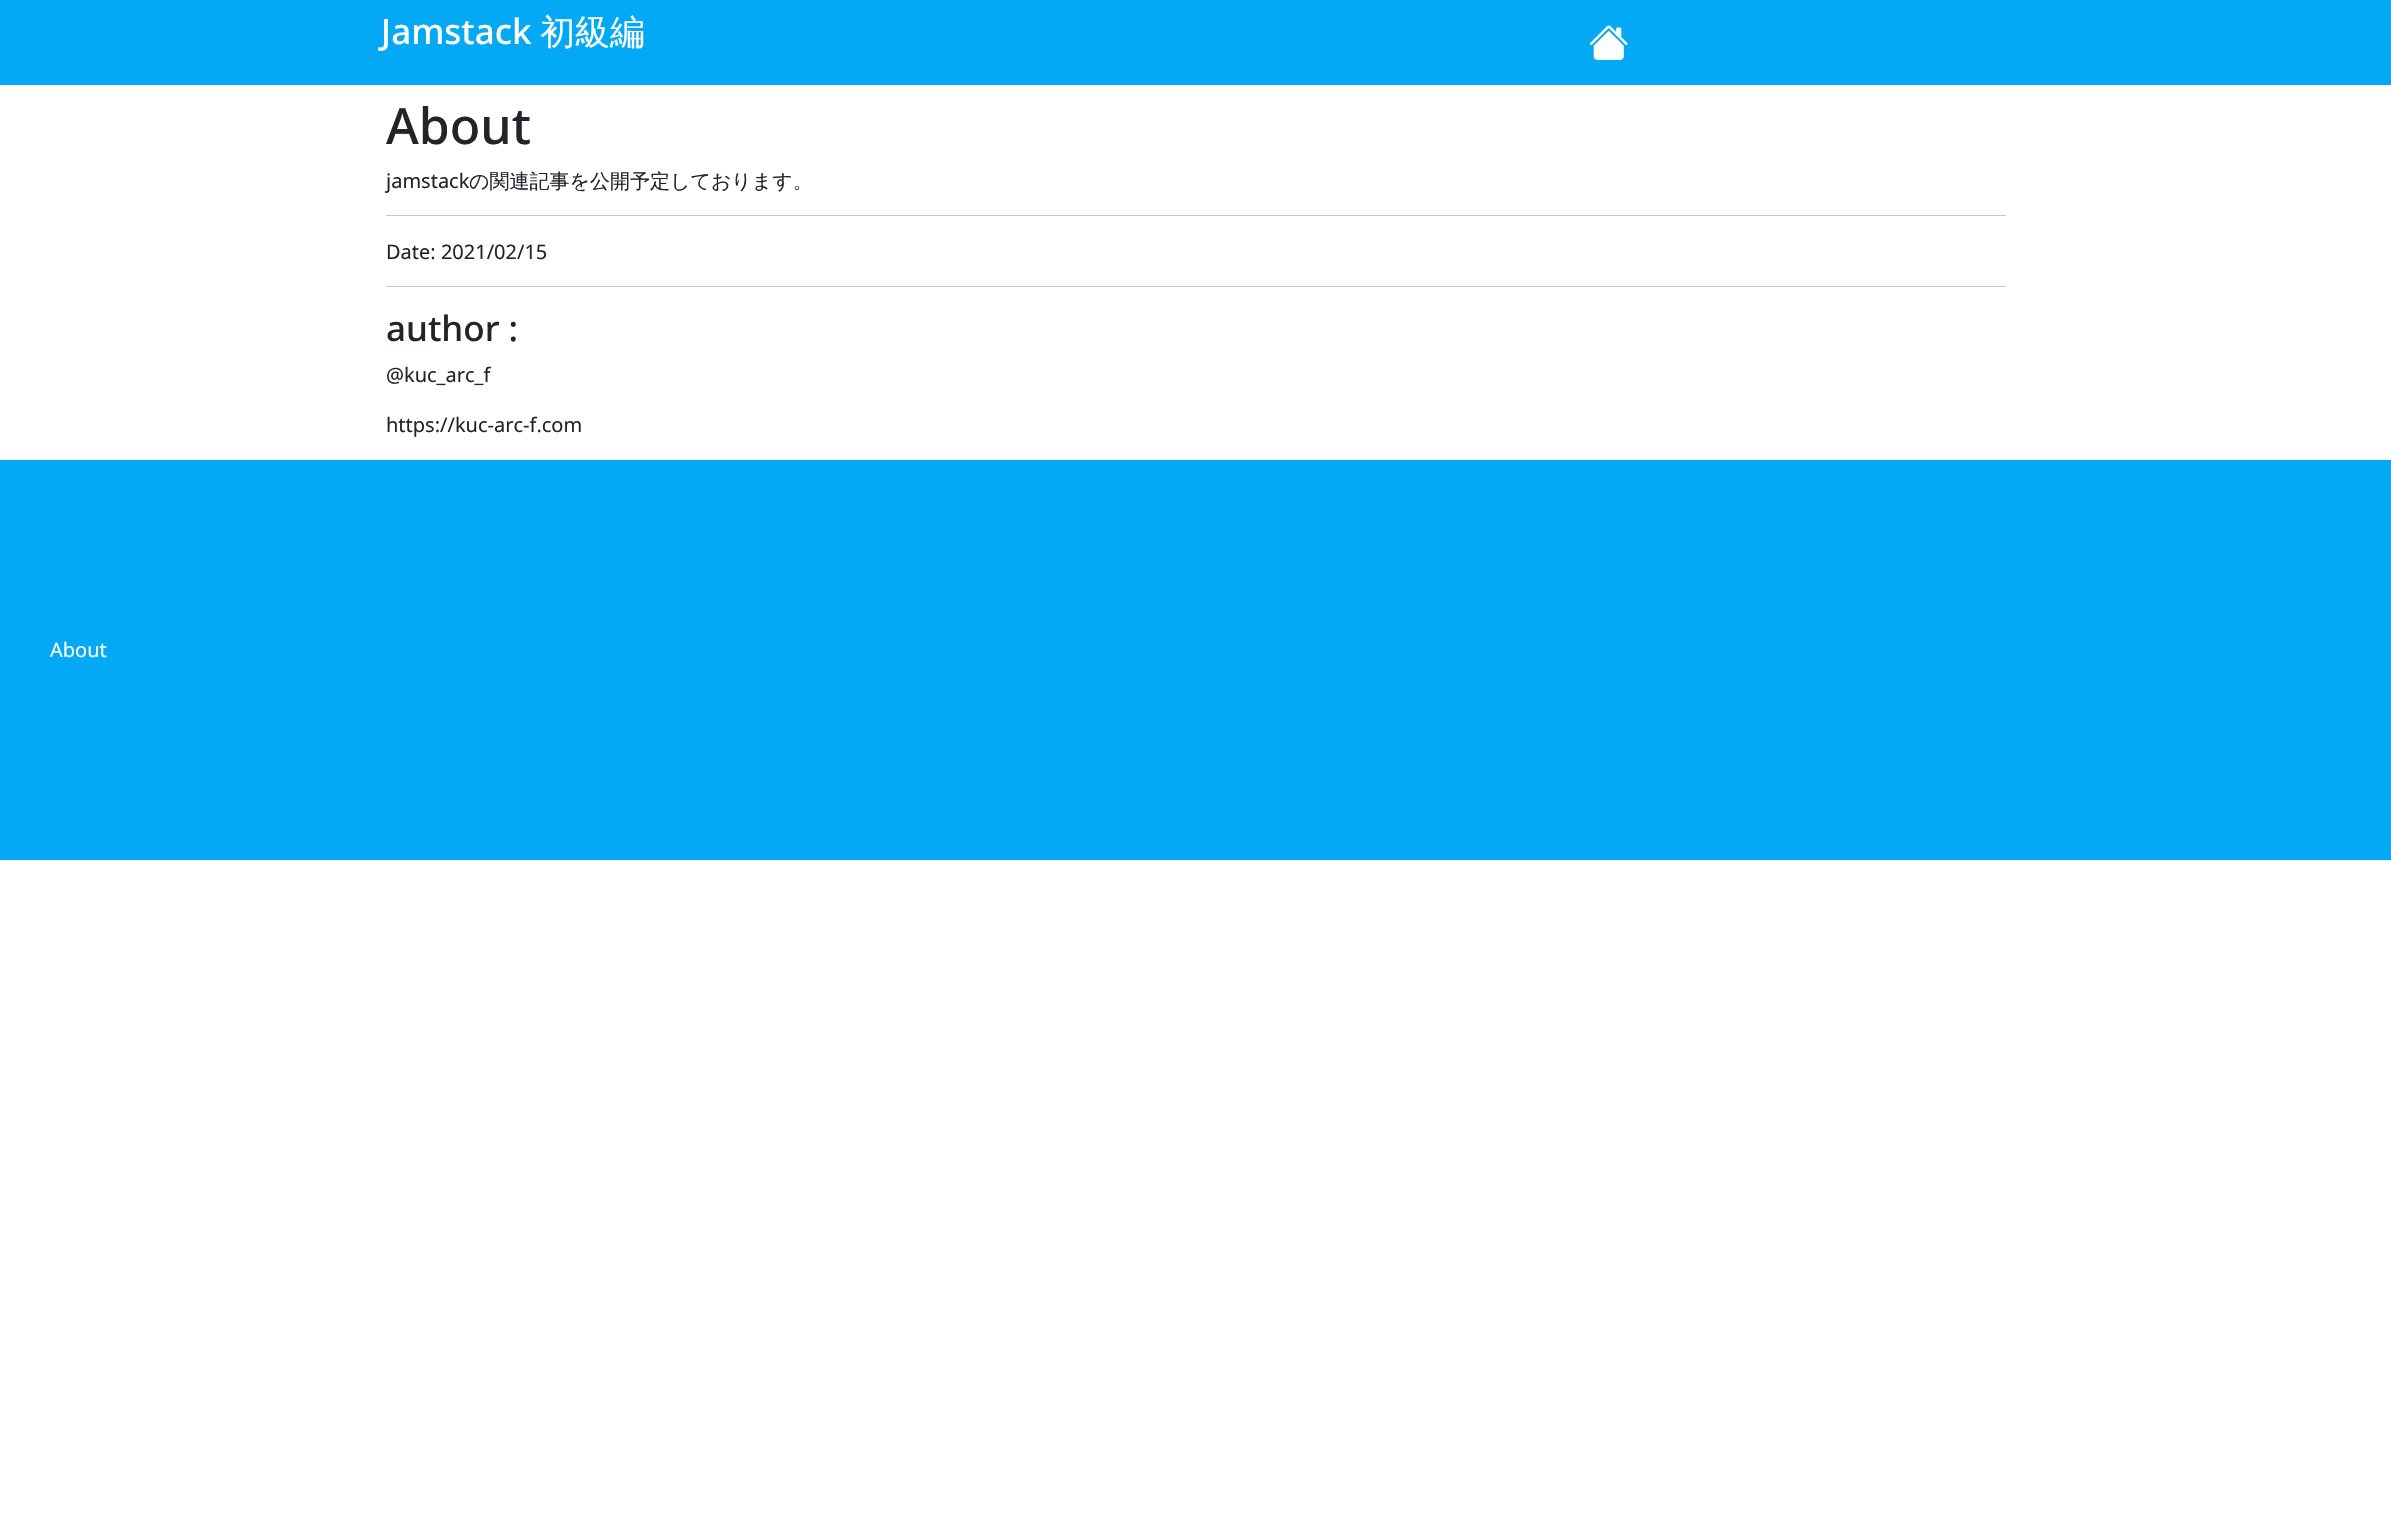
#include "include/core/SkBlurTypes.h"
#include "include/core/SkCanvas.h"
#include "include/core/SkData.h"
#include "include/core/SkFont.h"
#include "include/core/SkFontMgr.h"
#include "include/core/SkImage.h"
#include "include/core/SkMaskFilter.h"
#include "include/core/SkPaint.h"
#include "include/core/SkPathBuilder.h"
#include "include/core/SkTextBlob.h"
#include "include/effects/SkDashPathEffect.h"
#include "include/effects/SkGradientShader.h"
#include "include/utils/SkParsePath.h"

extern sk_sp<SkFontMgr> fontMgr;

void draw(SkCanvas* canvas) {
    SkPaint p;
    p.setAntiAlias(true);
    auto font = [&](const char* family, int weight, float size, bool italic = false) {
        SkFontStyle style(weight, SkFontStyle::kNormal_Width,
            italic ? SkFontStyle::kItalic_Slant : SkFontStyle::kUpright_Slant);
        SkFont result(fontMgr->matchFamilyStyle(family, style), size);
        result.setSubpixel(true);
        return result;
    };
    auto drawPhoto = [&](const char* path, float l, float t, float r, float b) {
        auto image = SkImages::DeferredFromEncodedData(SkData::MakeFromFileName(path));
        canvas->drawImageRect(image, SkRect::MakeLTRB(l, t, r, b), SkSamplingOptions());
    };
    canvas->clear(0xFFFFFFFF);
    p.setColor(0xFF03A9F4);
    canvas->drawRect(SkRect::MakeLTRB(0, 0, 2391, 85), p);
    auto font1 = font("Noto Sans", 500, 35);
    p.setColor(0xFFFFFFFF);
    canvas->drawString("Jamstack", 381, 44, font1, p);
    auto font2 = font("WenQuanYi Zen Hei", 500, 35);
    canvas->drawString("初級編", 540, 44, font2, p);
    drawPhoto("media/1.png", 1590, 25, 1628, 60);
    auto font3 = font("Noto Sans", 500, 50);
    p.setColor(0xFF212529);
    canvas->drawString("About", 386, 144, font3, p);
    auto font4 = font("Noto Sans", 400, 20);
    canvas->drawString("jamstack", 386, 188, font4, p);
    auto font5 = font("WenQuanYi Zen Hei", 500, 20);
    canvas->drawString("の関連記事を公開予定しております。", 469, 188, font5, p);
    p.setColor(0xFFC8C9CA);
    canvas->drawRect(SkRect::MakeLTRB(386, 215, 2006, 216), p);
    p.setColor(0xFF212529);
    canvas->drawString("Date: 2021/02/15", 386, 259, font4, p);
    p.setColor(0xFFC8C9CA);
    canvas->drawRect(SkRect::MakeLTRB(386, 286, 2006, 287), p);
    p.setColor(0xFF212529);
    canvas->drawString("author :", 386, 341, font1, p);
    canvas->drawString("@kuc_arc_f", 386, 382, font4, p);
    canvas->drawString("https://kuc-arc-f.com", 386, 432, font4, p);
    p.setColor(0xFF03A9F4);
    canvas->drawRect(SkRect::MakeLTRB(0, 460, 2391, 860), p);
    p.setColor(0xFFFFFFFF);
    canvas->drawString("About", 50, 657, font4, p);
}
